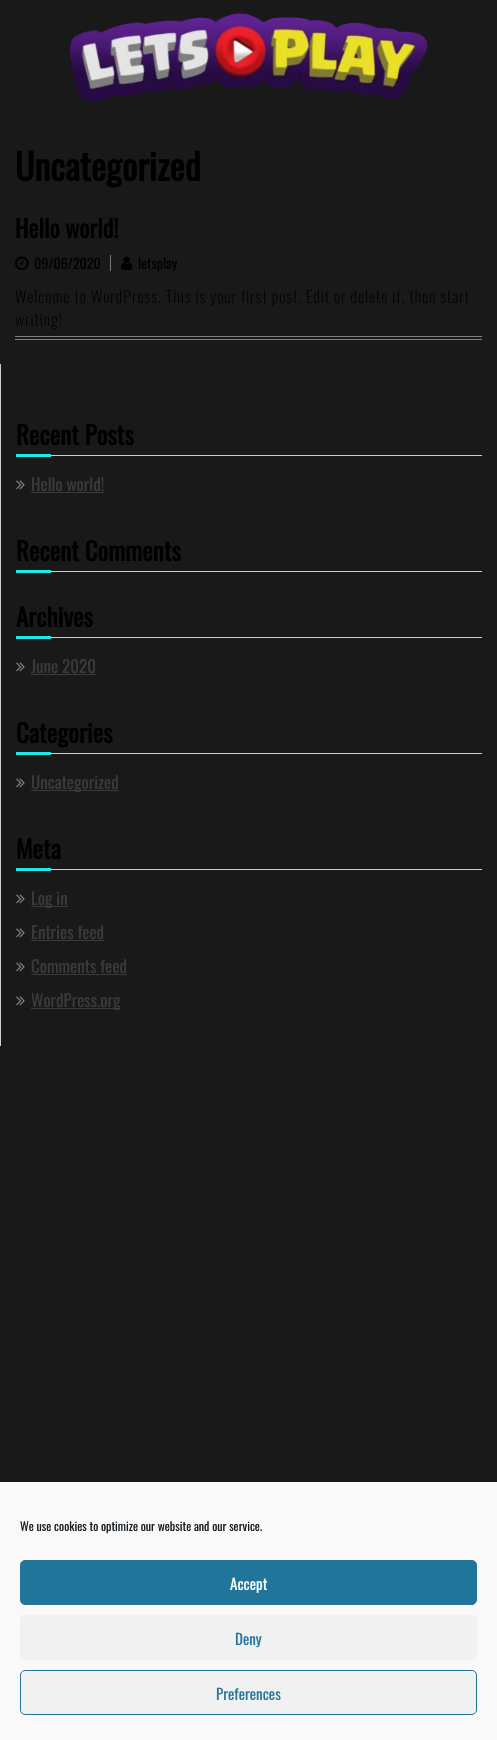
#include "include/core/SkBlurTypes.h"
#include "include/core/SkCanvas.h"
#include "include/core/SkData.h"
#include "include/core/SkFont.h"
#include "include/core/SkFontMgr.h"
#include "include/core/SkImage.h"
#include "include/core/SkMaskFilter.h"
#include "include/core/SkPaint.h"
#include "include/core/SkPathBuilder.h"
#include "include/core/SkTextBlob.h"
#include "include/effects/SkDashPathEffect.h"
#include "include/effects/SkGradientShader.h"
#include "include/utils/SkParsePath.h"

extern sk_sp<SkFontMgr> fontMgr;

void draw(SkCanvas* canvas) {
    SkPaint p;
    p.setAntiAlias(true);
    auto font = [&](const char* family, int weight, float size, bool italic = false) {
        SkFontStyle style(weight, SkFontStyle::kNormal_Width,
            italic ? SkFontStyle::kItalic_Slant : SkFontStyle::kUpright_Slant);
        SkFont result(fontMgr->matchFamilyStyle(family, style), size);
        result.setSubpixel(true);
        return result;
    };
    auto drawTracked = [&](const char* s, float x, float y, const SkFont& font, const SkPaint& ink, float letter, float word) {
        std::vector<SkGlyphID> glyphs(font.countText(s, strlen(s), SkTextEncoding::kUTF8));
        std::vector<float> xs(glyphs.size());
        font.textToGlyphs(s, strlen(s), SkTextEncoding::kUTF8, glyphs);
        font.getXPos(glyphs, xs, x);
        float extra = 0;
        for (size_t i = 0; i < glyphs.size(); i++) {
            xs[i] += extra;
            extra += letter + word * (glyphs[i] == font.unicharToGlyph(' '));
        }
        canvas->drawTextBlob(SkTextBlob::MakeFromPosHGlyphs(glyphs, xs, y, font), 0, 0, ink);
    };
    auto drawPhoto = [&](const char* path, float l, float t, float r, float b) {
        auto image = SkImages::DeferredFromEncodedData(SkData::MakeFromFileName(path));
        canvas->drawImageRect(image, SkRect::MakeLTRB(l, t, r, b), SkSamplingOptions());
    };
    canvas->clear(0xFF191919);
    drawPhoto("media/1.png", 69, 13, 428, 101);
    auto font1 = font("Oswald", 700, 36);
    p.setColor(0xFF000000);
    canvas->drawString("Uncategorized", 15, 181, font1, p);
    p.setColor(0xFF808080);
    canvas->drawRect(SkRect::MakeLTRB(15, 336, 482, 337), p);
    canvas->drawRect(SkRect::MakeLTRB(15, 339, 482, 340), p);
    auto font2 = font("Oswald", 700, 24);
    p.setColor(0xFF000000);
    canvas->drawString("Hello world!", 15, 238, font2, p);
    drawPhoto("media/2.png", 15, 256, 29, 270);
    auto font3 = font("Oswald", 400, 14);
    canvas->drawString("09/06/2020", 34, 269, font3, p);
    drawPhoto("media/3.png", 121, 256, 133, 270);
    canvas->drawString("letsplay", 138, 269, font3, p);
    p.setColor(0xFF777777);
    canvas->drawRect(SkRect::MakeLTRB(110, 255, 111, 271), p);
    auto font4 = font("Oswald", 200, 16);
    p.setColor(0xFF000000);
    drawTracked("Welcome to WordPress. This is your first post. Edit or delete it, then start", 15, 303, font4, p, 1, 0);
    drawTracked("writing!", 15, 326, font4, p, 1, 0);
    p.setColor(0xFFCDCDCD);
    canvas->drawRect(SkRect::MakeLTRB(0, 364, 1, 1046), p);
    canvas->drawRect(SkRect::MakeLTRB(51, 455, 482, 456), p);
    auto font5 = font("Oswald", 700, 25);
    p.setColor(0xFF000000);
    canvas->drawString("Recent Posts", 16, 445, font5, p);
    p.setColor(0xFF1DE9EA);
    canvas->drawRect(SkRect::MakeLTRB(16, 454, 51, 457), p);
    drawPhoto("media/4.png", 16, 480, 25, 490);
    auto font6 = font("Oswald", 400, 17);
    p.setColor(0xFF3A3A3A);
    canvas->drawString("Hello world!", 31, 491, font6, p);
    canvas->drawRect(SkRect::MakeLTRB(31, 492, 104, 493), p);
    p.setColor(0xFFCDCDCD);
    canvas->drawRect(SkRect::MakeLTRB(51, 571, 482, 572), p);
    p.setColor(0xFF000000);
    canvas->drawString("Recent Comments", 16, 561, font5, p);
    p.setColor(0xFF1DE9EA);
    canvas->drawRect(SkRect::MakeLTRB(16, 570, 51, 573), p);
    p.setColor(0xFFCDCDCD);
    canvas->drawRect(SkRect::MakeLTRB(51, 637, 482, 638), p);
    p.setColor(0xFF000000);
    canvas->drawString("Archives", 16, 627, font5, p);
    p.setColor(0xFF1DE9EA);
    canvas->drawRect(SkRect::MakeLTRB(16, 636, 51, 639), p);
    drawPhoto("media/4.png", 16, 662, 25, 672);
    p.setColor(0xFF3A3A3A);
    canvas->drawString("June 2020", 31, 673, font6, p);
    canvas->drawRect(SkRect::MakeLTRB(31, 674, 96, 675), p);
    p.setColor(0xFFCDCDCD);
    canvas->drawRect(SkRect::MakeLTRB(51, 753, 482, 754), p);
    p.setColor(0xFF000000);
    canvas->drawString("Categories", 16, 743, font5, p);
    p.setColor(0xFF1DE9EA);
    canvas->drawRect(SkRect::MakeLTRB(16, 752, 51, 755), p);
    drawPhoto("media/4.png", 16, 778, 25, 788);
    p.setColor(0xFF3A3A3A);
    canvas->drawRect(SkRect::MakeLTRB(31, 790, 119, 791), p);
    canvas->drawString("Uncategorized", 31, 789, font6, p);
    p.setColor(0xFFCDCDCD);
    canvas->drawRect(SkRect::MakeLTRB(51, 869, 482, 870), p);
    p.setColor(0xFF000000);
    canvas->drawString("Meta", 16, 859, font5, p);
    p.setColor(0xFF1DE9EA);
    canvas->drawRect(SkRect::MakeLTRB(16, 868, 51, 871), p);
    drawPhoto("media/4.png", 16, 894, 25, 904);
    p.setColor(0xFF3A3A3A);
    canvas->drawRect(SkRect::MakeLTRB(31, 906, 68, 907), p);
    canvas->drawString("Log in", 31, 905, font6, p);
    drawPhoto("media/4.png", 16, 928, 25, 938);
    canvas->drawString("Entries feed", 31, 939, font6, p);
    canvas->drawRect(SkRect::MakeLTRB(31, 940, 104, 941), p);
    drawPhoto("media/4.png", 16, 962, 25, 972);
    canvas->drawString("Comments feed", 31, 973, font6, p);
    canvas->drawRect(SkRect::MakeLTRB(31, 974, 127, 975), p);
    drawPhoto("media/4.png", 16, 996, 25, 1006);
    canvas->drawRect(SkRect::MakeLTRB(31, 1008, 120, 1009), p);
    canvas->drawString("WordPress.org", 31, 1007, font6, p);
    p.setColor(0xFFF9F9F9);
    canvas->drawRect(SkRect::MakeLTRB(0, 1482, 497, 1740), p);
    auto font7 = font("Oswald", 400, 12);
    p.setColor(0xFF191E23);
    canvas->drawString("We use cookies to optimize our website and our service.", 20, 1531, font7, p);
    p.setColor(0xFF21759B);
    canvas->drawRoundRect(SkRect::MakeLTRB(20.5f, 1560.5f, 476.5f, 1604.5f), 4.5f, 4.5f, p);
    p.setStyle(SkPaint::kStroke_Style);
    p.setStrokeWidth(1);
    canvas->drawRoundRect(SkRect::MakeLTRB(20.5f, 1560.5f, 476.5f, 1604.5f), 4.5f, 4.5f, p);
    auto font8 = font("Oswald", 400, 15);
    p.setStyle(SkPaint::kFill_Style);
    p.setColor(0xFFFFFFFF);
    canvas->drawString("Accept", 230, 1590, font8, p);
    p.setColor(0xFFF1F1F1);
    canvas->drawRoundRect(SkRect::MakeLTRB(20, 1615, 477, 1660), 5, 5, p);
    p.setColor(0xFF21759B);
    canvas->drawString("Deny", 235, 1645, font8, p);
    p.setColor(0xFFF1F1F1);
    canvas->drawRoundRect(SkRect::MakeLTRB(20.5f, 1670.5f, 476.5f, 1714.5f), 4.5f, 4.5f, p);
    p.setStyle(SkPaint::kStroke_Style);
    p.setColor(0xFF21759B);
    canvas->drawRoundRect(SkRect::MakeLTRB(20.5f, 1670.5f, 476.5f, 1714.5f), 4.5f, 4.5f, p);
    p.setStyle(SkPaint::kFill_Style);
    canvas->drawString("Preferences", 216, 1700, font8, p);
}
